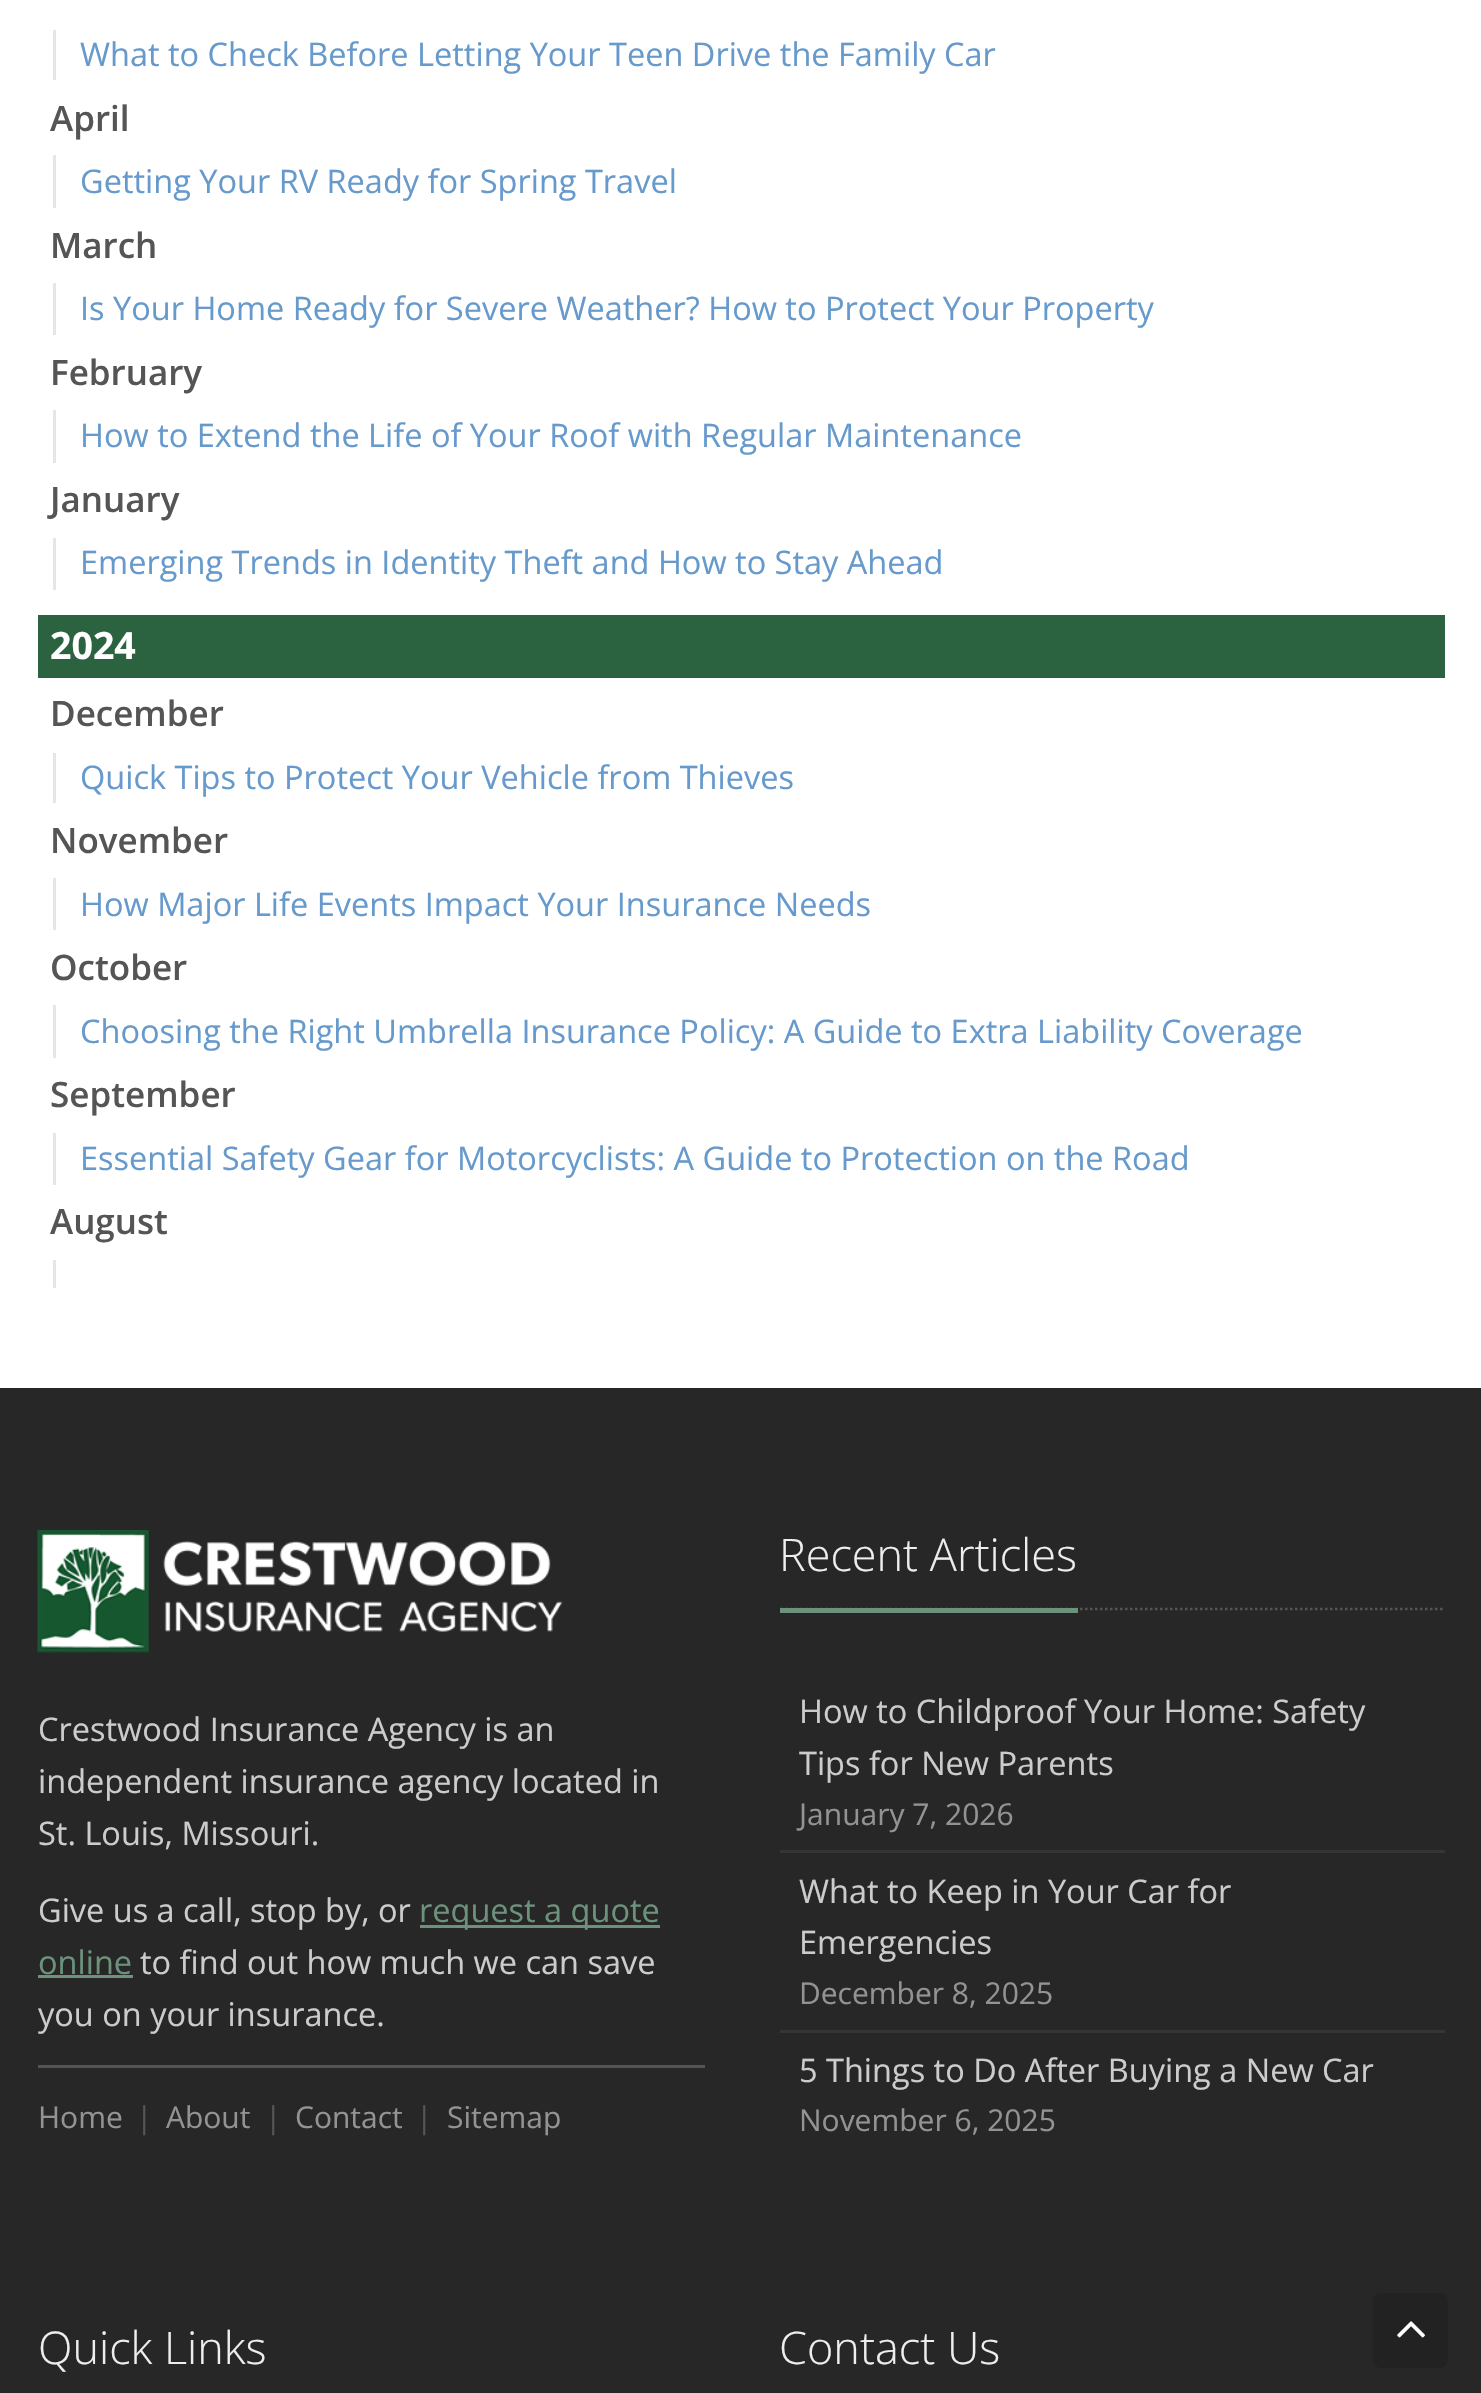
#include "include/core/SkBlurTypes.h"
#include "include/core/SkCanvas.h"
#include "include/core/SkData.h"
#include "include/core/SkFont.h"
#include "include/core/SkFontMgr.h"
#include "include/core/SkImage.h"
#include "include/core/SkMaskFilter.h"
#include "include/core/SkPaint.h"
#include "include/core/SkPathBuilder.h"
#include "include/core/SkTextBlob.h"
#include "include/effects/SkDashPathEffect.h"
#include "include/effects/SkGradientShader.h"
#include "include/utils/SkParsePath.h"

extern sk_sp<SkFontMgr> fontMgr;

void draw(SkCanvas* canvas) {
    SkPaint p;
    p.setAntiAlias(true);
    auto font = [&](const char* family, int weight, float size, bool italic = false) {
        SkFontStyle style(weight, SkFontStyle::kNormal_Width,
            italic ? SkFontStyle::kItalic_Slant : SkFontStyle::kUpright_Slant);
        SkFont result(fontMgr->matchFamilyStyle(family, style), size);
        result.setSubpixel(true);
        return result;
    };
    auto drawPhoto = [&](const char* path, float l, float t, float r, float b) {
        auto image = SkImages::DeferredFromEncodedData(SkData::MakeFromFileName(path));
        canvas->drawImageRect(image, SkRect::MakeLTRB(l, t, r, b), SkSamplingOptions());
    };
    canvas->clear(0xFFFFFFFF);
    p.setColor(0xFFE6E6E6);
    canvas->drawRect(SkRect::MakeLTRB(53, 30, 56, 80), p);
    auto font1 = font("Open Sans", 400, 32.5f);
    p.setColor(0xFF6699CC);
    canvas->drawString("What to Check Before Letting Your Teen Drive the Family Car", 80, 66, font1, p);
    auto font2 = font("Open Sans", 600, 35);
    p.setColor(0xFF555555);
    canvas->drawString("April", 50, 131, font2, p);
    p.setColor(0xFFE6E6E6);
    canvas->drawRect(SkRect::MakeLTRB(53, 155, 56, 208), p);
    p.setColor(0xFF6699CC);
    canvas->drawString("Getting Your RV Ready for Spring Travel", 80, 193, font1, p);
    p.setColor(0xFF555555);
    canvas->drawString("March", 50, 258, font2, p);
    p.setColor(0xFFE6E6E6);
    canvas->drawRect(SkRect::MakeLTRB(53, 283, 56, 335), p);
    p.setColor(0xFF6699CC);
    canvas->drawString("Is Your Home Ready for Severe Weather? How to Protect Your Property", 80, 320, font1, p);
    p.setColor(0xFF555555);
    canvas->drawString("February", 50, 385, font2, p);
    p.setColor(0xFFE6E6E6);
    canvas->drawRect(SkRect::MakeLTRB(53, 410, 56, 463), p);
    p.setColor(0xFF6699CC);
    canvas->drawString("How to Extend the Life of Your Roof with Regular Maintenance", 80, 447, font1, p);
    p.setColor(0xFF555555);
    canvas->drawString("January", 50, 512, font2, p);
    p.setColor(0xFFE6E6E6);
    canvas->drawRect(SkRect::MakeLTRB(53, 538, 56, 590), p);
    p.setColor(0xFF6699CC);
    canvas->drawString("Emerging Trends in Identity Theft and How to Stay Ahead", 80, 574, font1, p);
    p.setColor(0xFF2B6240);
    canvas->drawRect(SkRect::MakeLTRB(38, 615, 1445, 678), p);
    auto font3 = font("Open Sans", 700, 37.5f);
    p.setColor(0xFFFFFFFF);
    canvas->drawString("2024", 50, 659, font3, p);
    p.setColor(0xFF555555);
    canvas->drawString("December", 50, 726, font2, p);
    p.setColor(0xFFE6E6E6);
    canvas->drawRect(SkRect::MakeLTRB(53, 753, 56, 803), p);
    p.setColor(0xFF6699CC);
    canvas->drawString("Quick Tips to Protect Your Vehicle from Thieves", 80, 789, font1, p);
    p.setColor(0xFF555555);
    canvas->drawString("November", 50, 853, font2, p);
    p.setColor(0xFFE6E6E6);
    canvas->drawRect(SkRect::MakeLTRB(53, 878, 56, 930), p);
    p.setColor(0xFF6699CC);
    canvas->drawString("How Major Life Events Impact Your Insurance Needs", 80, 916, font1, p);
    p.setColor(0xFF555555);
    canvas->drawString("October", 50, 980, font2, p);
    p.setColor(0xFFE6E6E6);
    canvas->drawRect(SkRect::MakeLTRB(53, 1005, 56, 1058), p);
    p.setColor(0xFF6699CC);
    canvas->drawString("Choosing the Right Umbrella Insurance Policy: A Guide to Extra Liability Coverage", 80, 1043, font1, p);
    p.setColor(0xFF555555);
    canvas->drawString("September", 50, 1107, font2, p);
    p.setColor(0xFFE6E6E6);
    canvas->drawRect(SkRect::MakeLTRB(53, 1133, 56, 1185), p);
    p.setColor(0xFF6699CC);
    canvas->drawString("Essential Safety Gear for Motorcyclists: A Guide to Protection on the Road", 80, 1170, font1, p);
    p.setColor(0xFF555555);
    canvas->drawString("August", 50, 1234, font2, p);
    p.setColor(0xFFE6E6E6);
    canvas->drawRect(SkRect::MakeLTRB(53, 1260, 56, 1288), p);
    p.setColor(0xFF272727);
    canvas->drawRect(SkRect::MakeLTRB(0, 1388, 1481, 2393), p);
    drawPhoto("media/1.png", 37, 1530, 563, 1653);
    p.setColor(0xFFCCCCCC);
    {
        const struct { const char* s; float x, y; } items[] = {
            {"Crestwood Insurance Agency is an", 38, 1741},
            {"independent insurance agency located in", 38, 1793},
            {"St. Louis, Missouri.", 38, 1845},
            {"Give us a call, stop by, or", 38, 1922},
        };
        for (auto [s, x, y] : items) {
            canvas->drawString(s, x, y, font1, p);
        }
    }
    p.setColor(0xFF6C927B);
    canvas->drawRect(SkRect::MakeLTRB(420, 1925, 660, 1928), p);
    canvas->drawString("request a quote", 419, 1922, font1, p);
    canvas->drawString("online", 38, 1974, font1, p);
    canvas->drawRect(SkRect::MakeLTRB(38, 1975, 133, 1978), p);
    p.setColor(0xFFCCCCCC);
    canvas->drawString("to find out how much we can save", 140, 1974, font1, p);
    canvas->drawString("you on your insurance.", 38, 2026, font1, p);
    p.setColor(0xFF545454);
    canvas->drawRect(SkRect::MakeLTRB(38, 2065, 705, 2068), p);
    auto font4 = font("Open Sans", 400, 30);
    p.setColor(0xFF939393);
    canvas->drawString("Home", 38, 2128, font4, p);
    p.setColor(0xFF555555);
    canvas->drawString("|", 136, 2128, font4, p);
    p.setColor(0xFF939393);
    canvas->drawString("About", 166, 2128, font4, p);
    p.setColor(0xFF555555);
    canvas->drawString("|", 265, 2128, font4, p);
    p.setColor(0xFF939393);
    canvas->drawString("Contact", 295, 2128, font4, p);
    p.setColor(0xFF555555);
    canvas->drawString("|", 416, 2128, font4, p);
    p.setColor(0xFF939393);
    canvas->drawString("Sitemap", 447, 2128, font4, p);
    p.setStyle(SkPaint::kStroke_Style);
    p.setStrokeWidth(2.5f);
    p.setColor(0xFF545454);
    p.setPathEffect(SkDashPathEffect::Make({{2.5f, 2.5f}}, 0));
    canvas->drawPath(SkPathBuilder().moveTo(780, 1609).lineTo(1445, 1609).detach(), p);
    p.setPathEffect(nullptr);
    p.setStyle(SkPaint::kFill_Style);
    p.setColor(0xFF6C927B);
    canvas->drawRect(SkRect::MakeLTRB(780, 1608, 1078, 1613), p);
    auto font5 = font("Open Sans", 300, 45);
    p.setColor(0xFFEEEEEE);
    canvas->drawString("Recent Articles", 779, 1571, font5, p);
    p.setColor(0xFFCCCCCC);
    canvas->drawString("How to Childproof Your Home: Safety", 799, 1723, font1, p);
    canvas->drawString("Tips for New Parents", 799, 1775, font1, p);
    p.setColor(0xFF939393);
    canvas->drawString("January 7, 2026", 799, 1825, font4, p);
    p.setColor(0xFF353535);
    canvas->drawRect(SkRect::MakeLTRB(780, 1850, 1445, 1853), p);
    p.setColor(0xFFCCCCCC);
    canvas->drawString("What to Keep in Your Car for", 799, 1903, font1, p);
    canvas->drawString("Emergencies", 799, 1954, font1, p);
    p.setColor(0xFF939393);
    canvas->drawString("December 8, 2025", 799, 2004, font4, p);
    p.setColor(0xFF353535);
    canvas->drawRect(SkRect::MakeLTRB(780, 2030, 1445, 2033), p);
    p.setColor(0xFFCCCCCC);
    canvas->drawString("5 Things to Do After Buying a New Car", 799, 2082, font1, p);
    p.setColor(0xFF939393);
    canvas->drawString("November 6, 2025", 799, 2131, font4, p);
    p.setColor(0xFFEEEEEE);
    canvas->drawString("Quick Links", 38, 2364, font5, p);
    canvas->drawString("Contact Us", 779, 2364, font5, p);
    p.setColor(0xFF222222);
    canvas->drawRoundRect(SkRect::MakeLTRB(1373, 2293, 1448, 2368), 8, 8, p);
    drawPhoto("media/2.png", 1397, 2321, 1425, 2338);
}
